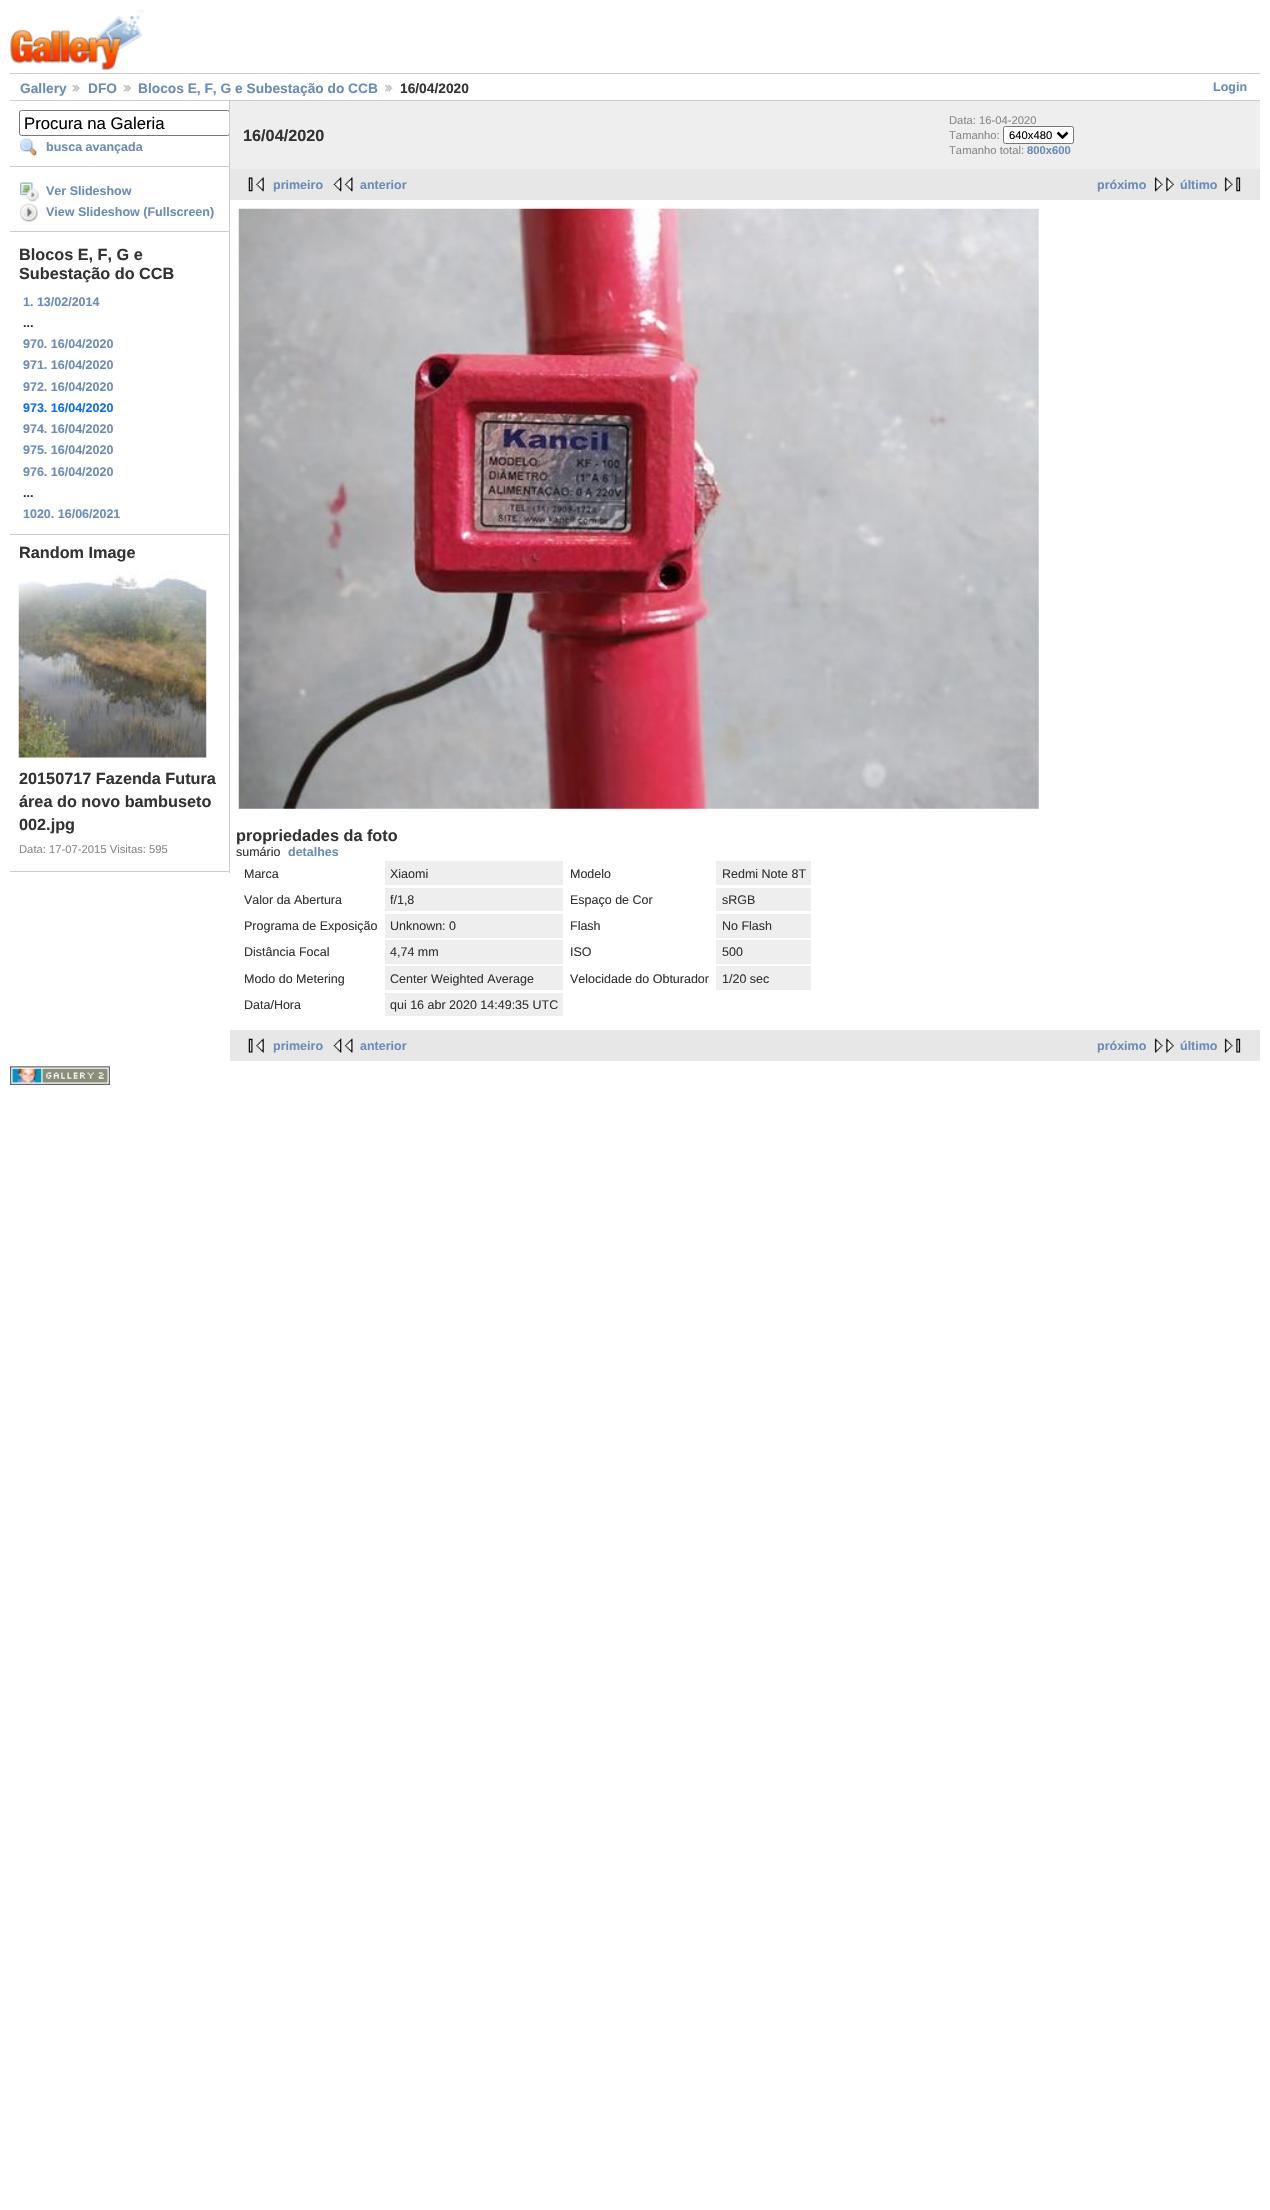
#include "include/core/SkBlurTypes.h"
#include "include/core/SkCanvas.h"
#include "include/core/SkData.h"
#include "include/core/SkFont.h"
#include "include/core/SkFontMgr.h"
#include "include/core/SkImage.h"
#include "include/core/SkMaskFilter.h"
#include "include/core/SkPaint.h"
#include "include/core/SkPathBuilder.h"
#include "include/core/SkTextBlob.h"
#include "include/effects/SkDashPathEffect.h"
#include "include/effects/SkGradientShader.h"
#include "include/utils/SkParsePath.h"

extern sk_sp<SkFontMgr> fontMgr;

void draw(SkCanvas* canvas) {
    SkPaint p;
    p.setAntiAlias(true);
    auto font = [&](const char* family, int weight, float size, bool italic = false) {
        SkFontStyle style(weight, SkFontStyle::kNormal_Width,
            italic ? SkFontStyle::kItalic_Slant : SkFontStyle::kUpright_Slant);
        SkFont result(fontMgr->matchFamilyStyle(family, style), size);
        result.setSubpixel(true);
        return result;
    };
    auto drawPhoto = [&](const char* path, float l, float t, float r, float b) {
        auto image = SkImages::DeferredFromEncodedData(SkData::MakeFromFileName(path));
        canvas->drawImageRect(image, SkRect::MakeLTRB(l, t, r, b), SkSamplingOptions());
    };
    canvas->clear(0xFFFFFFFF);
    drawPhoto("media/1.png", 10, 10, 144, 70);
    p.setColor(0xFFCCCCCC);
    canvas->drawRect(SkRect::MakeLTRB(10, 73, 1260, 74), p);
    canvas->drawRect(SkRect::MakeLTRB(10, 100, 1260, 101), p);
    auto font1 = font("Liberation Sans", 700, 13.75f);
    p.setColor(0xFF6B8CB7);
    canvas->drawString("Gallery", 20, 93, font1, p);
    drawPhoto("media/2.png", 72, 85, 80, 92);
    canvas->drawString("DFO", 88, 93, font1, p);
    drawPhoto("media/3.png", 123, 85, 132, 92);
    canvas->drawString("Blocos E, F, G e Subestação do CCB", 138, 93, font1, p);
    drawPhoto("media/4.png", 385, 84, 393, 92);
    p.setColor(0xFF333333);
    canvas->drawString("16/04/2020", 400, 93, font1, p);
    auto font2 = font("Liberation Sans", 700, 12.5f);
    p.setColor(0xFF6B8CB7);
    canvas->drawString("Login", 1213, 91, font2, p);
    p.setColor(0xFFCCCCCC);
    canvas->drawRect(SkRect::MakeLTRB(229, 101, 230, 873), p);
    canvas->drawRect(SkRect::MakeLTRB(10, 166, 229, 167), p);
    canvas->save();
    canvas->clipRect(SkRect::MakeLTRB(10, 101, 229, 873));
    p.setStyle(SkPaint::kStroke_Style);
    p.setStrokeWidth(1);
    p.setColor(0xFF767676);
    canvas->drawRoundRect(SkRect::MakeLTRB(19.5f, 110.5f, 229.5f, 135.5f), 2, 2, p);
    canvas->restore();
    auto font3 = font("Liberation Sans", 400, 16.75f);
    p.setStyle(SkPaint::kFill_Style);
    p.setColor(0xFF000000);
    canvas->drawString("Procura na Galeria", 24, 129, font3, p);
    drawPhoto("media/5.png", 19, 138, 37, 157);
    p.setColor(0xFF6B8CB7);
    canvas->drawString("busca avançada", 46, 151, font2, p);
    p.setColor(0xFFCCCCCC);
    canvas->drawRect(SkRect::MakeLTRB(10, 231, 229, 232), p);
    drawPhoto("media/6.png", 19, 182, 39, 202);
    p.setColor(0xFF6B8CB7);
    canvas->drawString("Ver Slideshow", 46, 195, font2, p);
    drawPhoto("media/7.png", 20, 203, 38, 222);
    canvas->drawString("View Slideshow (Fullscreen)", 46, 216, font2, p);
    p.setColor(0xFFCCCCCC);
    canvas->drawRect(SkRect::MakeLTRB(10, 534, 229, 535), p);
    auto font4 = font("Liberation Sans", 700, 16.25f);
    p.setColor(0xFF333333);
    canvas->drawString("Blocos E, F, G e", 19, 260, font4, p);
    canvas->drawString("Subestação do CCB", 19, 279, font4, p);
    p.setColor(0xFF6B8CB7);
    canvas->drawString("1. 13/02/2014", 23, 306, font2, p);
    p.setColor(0xFF333333);
    canvas->drawString("...", 23, 327, font2, p);
    p.setColor(0xFF6B8CB7);
    {
        const struct { const char* s; float x, y; } items[] = {
            {"970. 16/04/2020", 23, 348},
            {"971. 16/04/2020", 23, 369},
            {"972. 16/04/2020", 23, 391},
        };
        for (auto [s, x, y] : items) {
            canvas->drawString(s, x, y, font2, p);
        }
    }
    p.setColor(0xFF0B6CFF);
    canvas->drawString("973. 16/04/2020", 23, 412, font2, p);
    p.setColor(0xFF6B8CB7);
    {
        const struct { const char* s; float x, y; } items[] = {
            {"974. 16/04/2020", 23, 433},
            {"975. 16/04/2020", 23, 454},
            {"976. 16/04/2020", 23, 476},
        };
        for (auto [s, x, y] : items) {
            canvas->drawString(s, x, y, font2, p);
        }
    }
    p.setColor(0xFF333333);
    canvas->drawString("...", 23, 497, font2, p);
    p.setColor(0xFF6B8CB7);
    canvas->drawString("1020. 16/06/2021", 23, 518, font2, p);
    p.setColor(0xFFCCCCCC);
    canvas->drawRect(SkRect::MakeLTRB(10, 871, 229, 872), p);
    p.setColor(0xFF333333);
    canvas->drawString("Random Image", 19, 558, font4, p);
    drawPhoto("media/8.png", 18, 570, 207, 758);
    {
        const struct { const char* s; float x, y; } items[] = {
            {"20150717 Fazenda Futura", 19, 784},
            {"área do novo bambuseto", 19, 807},
            {"002.jpg", 19, 830},
        };
        for (auto [s, x, y] : items) {
            canvas->drawString(s, x, y, font4, p);
        }
    }
    auto font5 = font("Liberation Sans", 400, 11.25f);
    p.setColor(0xFF888888);
    canvas->drawString("Data: 17-07-2015 Visitas: 595", 19, 853, font5, p);
    p.setColor(0xFFEEEEEE);
    canvas->drawRect(SkRect::MakeLTRB(230, 101, 1260, 169), p);
    p.setColor(0xFF333333);
    canvas->drawString("16/04/2020", 243, 141, font4, p);
    p.setColor(0xFF888888);
    canvas->drawString("Data: 16-04-2020", 949, 124, font5, p);
    canvas->drawString("Tamanho:", 949, 139, font5, p);
    p.setColor(0xFFFFFFFF);
    canvas->drawRoundRect(SkRect::MakeLTRB(1003.5f, 126.5f, 1073.5f, 143.5f), 2, 2, p);
    p.setStyle(SkPaint::kStroke_Style);
    p.setColor(0xFF767676);
    canvas->drawRoundRect(SkRect::MakeLTRB(1003.5f, 126.5f, 1073.5f, 143.5f), 2, 2, p);
    p.setStrokeWidth(2.5f);
    p.setColor(0xFF000000);
    canvas->drawPath(SkPathBuilder().moveTo(1057.5f, 132.5f).lineTo(1062.5f, 137.5f).lineTo(1067.5f, 132.5f).detach(), p);
    p.setStyle(SkPaint::kFill_Style);
    canvas->drawString("640x480", 1009, 139, font5, p);
    p.setColor(0xFF888888);
    canvas->drawString("Tamanho total:", 949, 154, font5, p);
    auto font6 = font("Liberation Sans", 700, 11.25f);
    p.setColor(0xFF6B8CB7);
    canvas->drawString("800x600", 1027, 154, font6, p);
    p.setColor(0xFFE7E7E7);
    canvas->drawRect(SkRect::MakeLTRB(230, 169, 1260, 200), p);
    drawPhoto("media/9.png", 248, 177, 264, 192);
    p.setColor(0xFF6B8CB7);
    canvas->drawString("primeiro", 273, 189, font2, p);
    drawPhoto("media/10.png", 333, 177, 353, 192);
    canvas->drawString("anterior", 360, 189, font2, p);
    canvas->drawString("próximo", 1097, 189, font2, p);
    drawPhoto("media/11.png", 1154, 177, 1174, 192);
    canvas->drawString("último", 1180, 189, font2, p);
    drawPhoto("media/12.png", 1224, 177, 1241, 192);
    drawPhoto("media/13.png", 238, 208, 1039, 809);
    p.setColor(0xFF333333);
    canvas->drawString("propriedades da foto", 236, 841, font4, p);
    auto font7 = font("Liberation Sans", 400, 12.5f);
    canvas->drawString("sumário", 236, 856, font7, p);
    p.setColor(0xFF6B8CB7);
    canvas->drawString("detalhes", 288, 856, font2, p);
    p.setColor(0xFF333333);
    canvas->drawString("Marca", 244, 878, font7, p);
    p.setColor(0xFFEEEEEE);
    canvas->drawRect(SkRect::MakeLTRB(385, 861, 563, 885), p);
    p.setColor(0xFF333333);
    canvas->drawString("Xiaomi", 390, 878, font7, p);
    canvas->drawString("Modelo", 570, 878, font7, p);
    p.setColor(0xFFEEEEEE);
    canvas->drawRect(SkRect::MakeLTRB(716, 861, 811, 885), p);
    p.setColor(0xFF333333);
    canvas->drawString("Redmi Note 8T", 722, 878, font7, p);
    canvas->drawString("Valor da Abertura", 244, 904, font7, p);
    p.setColor(0xFFEEEEEE);
    canvas->drawRect(SkRect::MakeLTRB(385, 888, 563, 911), p);
    p.setColor(0xFF333333);
    canvas->drawString("f/1,8", 390, 904, font7, p);
    canvas->drawString("Espaço de Cor", 570, 904, font7, p);
    p.setColor(0xFFEEEEEE);
    canvas->drawRect(SkRect::MakeLTRB(716, 888, 811, 911), p);
    p.setColor(0xFF333333);
    canvas->drawString("sRGB", 722, 904, font7, p);
    canvas->drawString("Programa de Exposição", 244, 930, font7, p);
    p.setColor(0xFFEEEEEE);
    canvas->drawRect(SkRect::MakeLTRB(385, 914, 563, 938), p);
    p.setColor(0xFF333333);
    canvas->drawString("Unknown: 0", 390, 930, font7, p);
    canvas->drawString("Flash", 570, 930, font7, p);
    p.setColor(0xFFEEEEEE);
    canvas->drawRect(SkRect::MakeLTRB(716, 914, 811, 938), p);
    p.setColor(0xFF333333);
    canvas->drawString("No Flash", 722, 930, font7, p);
    canvas->drawString("Distância Focal", 244, 956, font7, p);
    p.setColor(0xFFEEEEEE);
    canvas->drawRect(SkRect::MakeLTRB(385, 940, 563, 964), p);
    p.setColor(0xFF333333);
    canvas->drawString("4,74 mm", 390, 956, font7, p);
    canvas->drawString("ISO", 570, 956, font7, p);
    p.setColor(0xFFEEEEEE);
    canvas->drawRect(SkRect::MakeLTRB(716, 940, 811, 964), p);
    p.setColor(0xFF333333);
    canvas->drawString("500", 722, 956, font7, p);
    canvas->drawString("Modo do Metering", 244, 983, font7, p);
    p.setColor(0xFFEEEEEE);
    canvas->drawRect(SkRect::MakeLTRB(385, 966, 563, 990), p);
    p.setColor(0xFF333333);
    canvas->drawString("Center Weighted Average", 390, 983, font7, p);
    canvas->drawString("Velocidade do Obturador", 570, 983, font7, p);
    p.setColor(0xFFEEEEEE);
    canvas->drawRect(SkRect::MakeLTRB(716, 966, 811, 990), p);
    p.setColor(0xFF333333);
    canvas->drawString("1/20 sec", 722, 983, font7, p);
    canvas->drawString("Data/Hora", 244, 1009, font7, p);
    p.setColor(0xFFEEEEEE);
    canvas->drawRect(SkRect::MakeLTRB(385, 993, 563, 1016), p);
    p.setColor(0xFF333333);
    canvas->drawString("qui 16 abr 2020 14:49:35 UTC", 390, 1009, font7, p);
    p.setColor(0xFFE7E7E7);
    canvas->drawRect(SkRect::MakeLTRB(230, 1030, 1260, 1061), p);
    drawPhoto("media/14.png", 248, 1038, 264, 1053);
    p.setColor(0xFF6B8CB7);
    canvas->drawString("primeiro", 273, 1050, font2, p);
    drawPhoto("media/15.png", 333, 1038, 353, 1053);
    canvas->drawString("anterior", 360, 1050, font2, p);
    canvas->drawString("próximo", 1097, 1050, font2, p);
    drawPhoto("media/16.png", 1154, 1038, 1174, 1053);
    canvas->drawString("último", 1180, 1050, font2, p);
    drawPhoto("media/17.png", 1224, 1038, 1241, 1053);
    drawPhoto("media/18.png", 10, 1066, 110, 1085);
}
